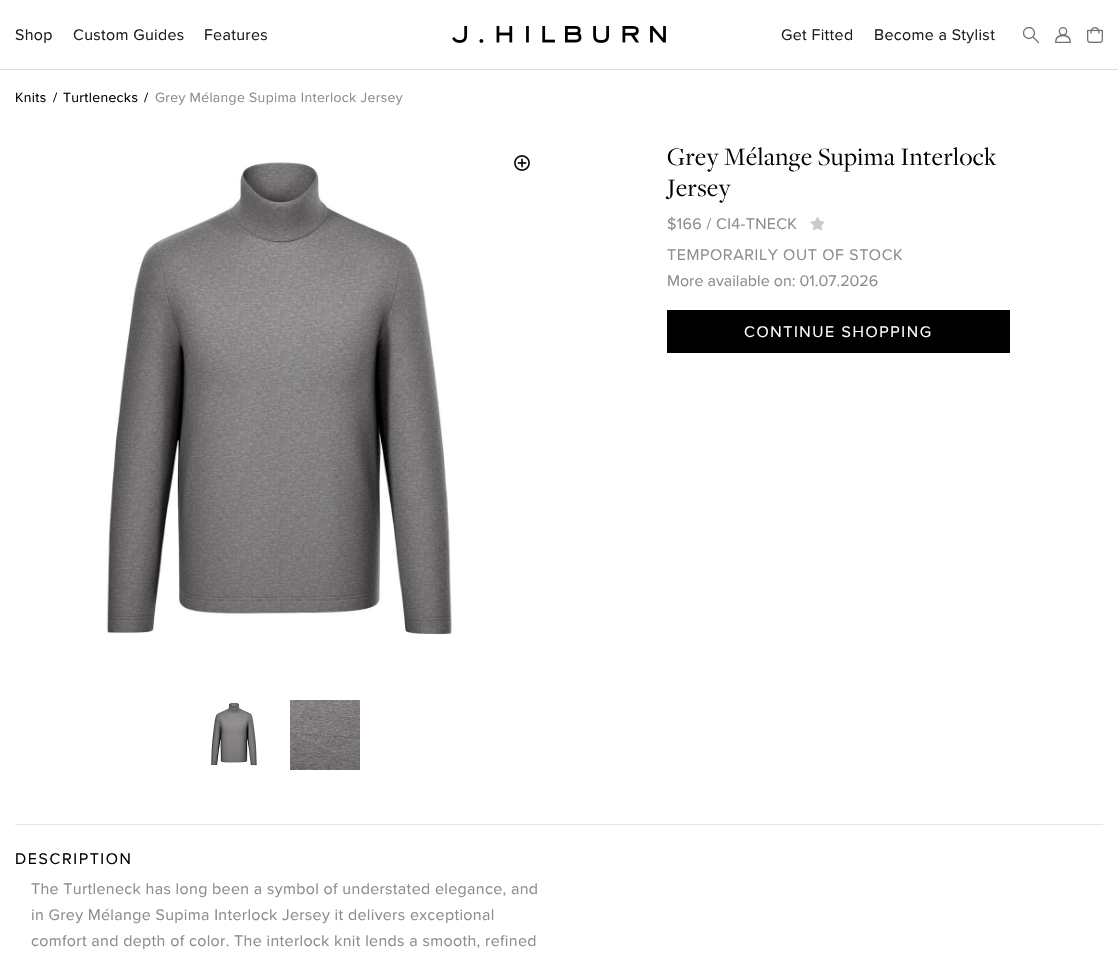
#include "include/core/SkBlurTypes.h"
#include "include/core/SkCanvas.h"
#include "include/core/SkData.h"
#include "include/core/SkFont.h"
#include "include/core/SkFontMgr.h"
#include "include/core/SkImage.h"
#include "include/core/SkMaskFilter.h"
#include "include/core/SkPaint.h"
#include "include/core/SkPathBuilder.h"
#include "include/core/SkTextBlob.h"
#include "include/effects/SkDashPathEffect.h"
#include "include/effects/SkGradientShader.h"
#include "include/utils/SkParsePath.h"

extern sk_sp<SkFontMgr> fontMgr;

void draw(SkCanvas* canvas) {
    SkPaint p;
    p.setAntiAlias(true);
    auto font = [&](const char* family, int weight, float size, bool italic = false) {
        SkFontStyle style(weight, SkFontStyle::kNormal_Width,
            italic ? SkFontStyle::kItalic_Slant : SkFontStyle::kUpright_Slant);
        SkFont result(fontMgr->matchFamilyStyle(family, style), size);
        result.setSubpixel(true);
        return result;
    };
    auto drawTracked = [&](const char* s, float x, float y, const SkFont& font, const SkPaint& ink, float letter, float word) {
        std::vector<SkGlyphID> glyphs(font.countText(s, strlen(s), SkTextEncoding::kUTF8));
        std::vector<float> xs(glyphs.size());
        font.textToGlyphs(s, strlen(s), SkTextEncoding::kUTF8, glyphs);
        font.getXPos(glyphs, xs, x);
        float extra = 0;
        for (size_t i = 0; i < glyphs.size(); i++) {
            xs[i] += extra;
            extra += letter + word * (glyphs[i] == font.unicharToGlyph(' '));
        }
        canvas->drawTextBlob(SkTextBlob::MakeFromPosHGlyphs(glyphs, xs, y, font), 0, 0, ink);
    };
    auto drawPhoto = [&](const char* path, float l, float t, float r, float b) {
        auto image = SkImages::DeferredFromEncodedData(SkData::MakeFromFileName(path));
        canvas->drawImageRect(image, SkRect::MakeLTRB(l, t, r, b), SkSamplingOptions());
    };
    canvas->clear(0xFFFFFFFF);
    p.setColor(0xFFDEDEDE);
    canvas->drawRect(SkRect::MakeLTRB(0, 69, 1118, 70), p);
    auto font1 = font("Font", 400, 16);
    p.setColor(0xFF1D1D1D);
    {
        const struct { const char* s; float x, y; } items[] = {
            {"Shop", 15, 40},
            {"Custom Guides", 73, 40},
            {"Features", 204, 40},
        };
        for (auto [s, x, y] : items) {
            drawTracked(s, x, y, font1, p, 0.32f, 0);
        }
    }
    drawPhoto("media/1.png", 452, 26, 666, 43);
    drawTracked("Get Fitted", 781, 40, font1, p, 0.32f, 0);
    drawTracked("Become a Stylist", 874, 40, font1, p, 0.32f, 0);
    p.setStyle(SkPaint::kStroke_Style);
    p.setStrokeWidth(1.3f);
    p.setStrokeCap(SkPaint::kRound_Cap);
    p.setStrokeJoin(SkPaint::kRound_Join);
    p.setColor(0xFF707070);
    canvas->drawPath(SkPathBuilder().moveTo(1033, 37).lineTo(1038.5f, 42.5f).detach(), p);
    canvas->save();
    canvas->clipRect(SkRect::MakeLTRB(1023, 27, 1039, 43));
    p.setStrokeCap(SkPaint::kButt_Cap);
    p.setStrokeJoin(SkPaint::kMiter_Join);
    canvas->drawCircle(1029, 33, 5.5f, p);
    canvas->restore();
    drawPhoto("media/2.png", 1055, 27, 1071, 43);
    drawPhoto("media/3.png", 1087, 27, 1103, 43);
    auto font2 = font("Font", 400, 14);
    p.setStyle(SkPaint::kFill_Style);
    p.setColor(0xFF000000);
    {
        const struct { const char* s; float x, y; } items[] = {
            {"Knits", 15, 102},
            {"/", 53, 102},
            {"Turtlenecks", 63, 102},
            {"/", 144, 102},
        };
        for (auto [s, x, y] : items) {
            drawTracked(s, x, y, font2, p, 0.32f, 0);
        }
    }
    p.setColor(0xFF8C8C8C);
    drawTracked("Grey Mélange Supima Interlock Jersey", 155, 102, font2, p, 0.32f, 0);
    drawPhoto("media/4.png", 106, 162, 452, 635);
    drawPhoto("media/5.png", 514, 155, 530, 171);
    drawPhoto("media/6.png", 211, 702, 257, 766);
    drawPhoto("media/7.png", 290, 700, 360, 770);
    auto font3 = font("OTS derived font", 400, 26);
    p.setColor(0xFF000000);
    drawTracked("Grey Mélange Supima Interlock", 667, 165, font3, p, 0.5f, 0);
    drawTracked("Jersey", 667, 196, font3, p, 0.5f, 0);
    p.setColor(0xFF8C8C8C);
    drawTracked("$166 / CI4-TNECK", 667, 229, font1, p, 0.32f, 0);
    drawPhoto("media/8.png", 810, 217, 825, 230);
    drawTracked("TEMPORARILY OUT OF STOCK", 667, 260, font1, p, 0.6f, 0);
    canvas->drawString("More available on: 01.07.2026", 667, 286, font1, p);
    p.setColor(0xFF000000);
    canvas->drawRect(SkRect::MakeLTRB(667, 310, 1010, 353), p);
    p.setColor(0xFFFFFFFF);
    drawTracked("CONTINUE SHOPPING", 744, 337, font1, p, 1.6f, 0);
    p.setColor(0xFFE6E6E6);
    canvas->drawRect(SkRect::MakeLTRB(15, 824, 1103, 825), p);
    p.setColor(0xFF000000);
    drawTracked("DESCRIPTION", 15, 864, font1, p, 1.6f, 0);
    p.setColor(0xFF8C8C8C);
    {
        const struct { const char* s; float x, y; } items[] = {
            {"The Turtleneck has long been a symbol of understated elegance, and", 31, 894},
            {"in Grey Mélange Supima Interlock Jersey it delivers exceptional", 31, 920},
            {"comfort and depth of color. The interlock knit lends a smooth, refined", 31, 946},
        };
        for (auto [s, x, y] : items) {
            drawTracked(s, x, y, font1, p, 0.32f, 0);
        }
    }
}
